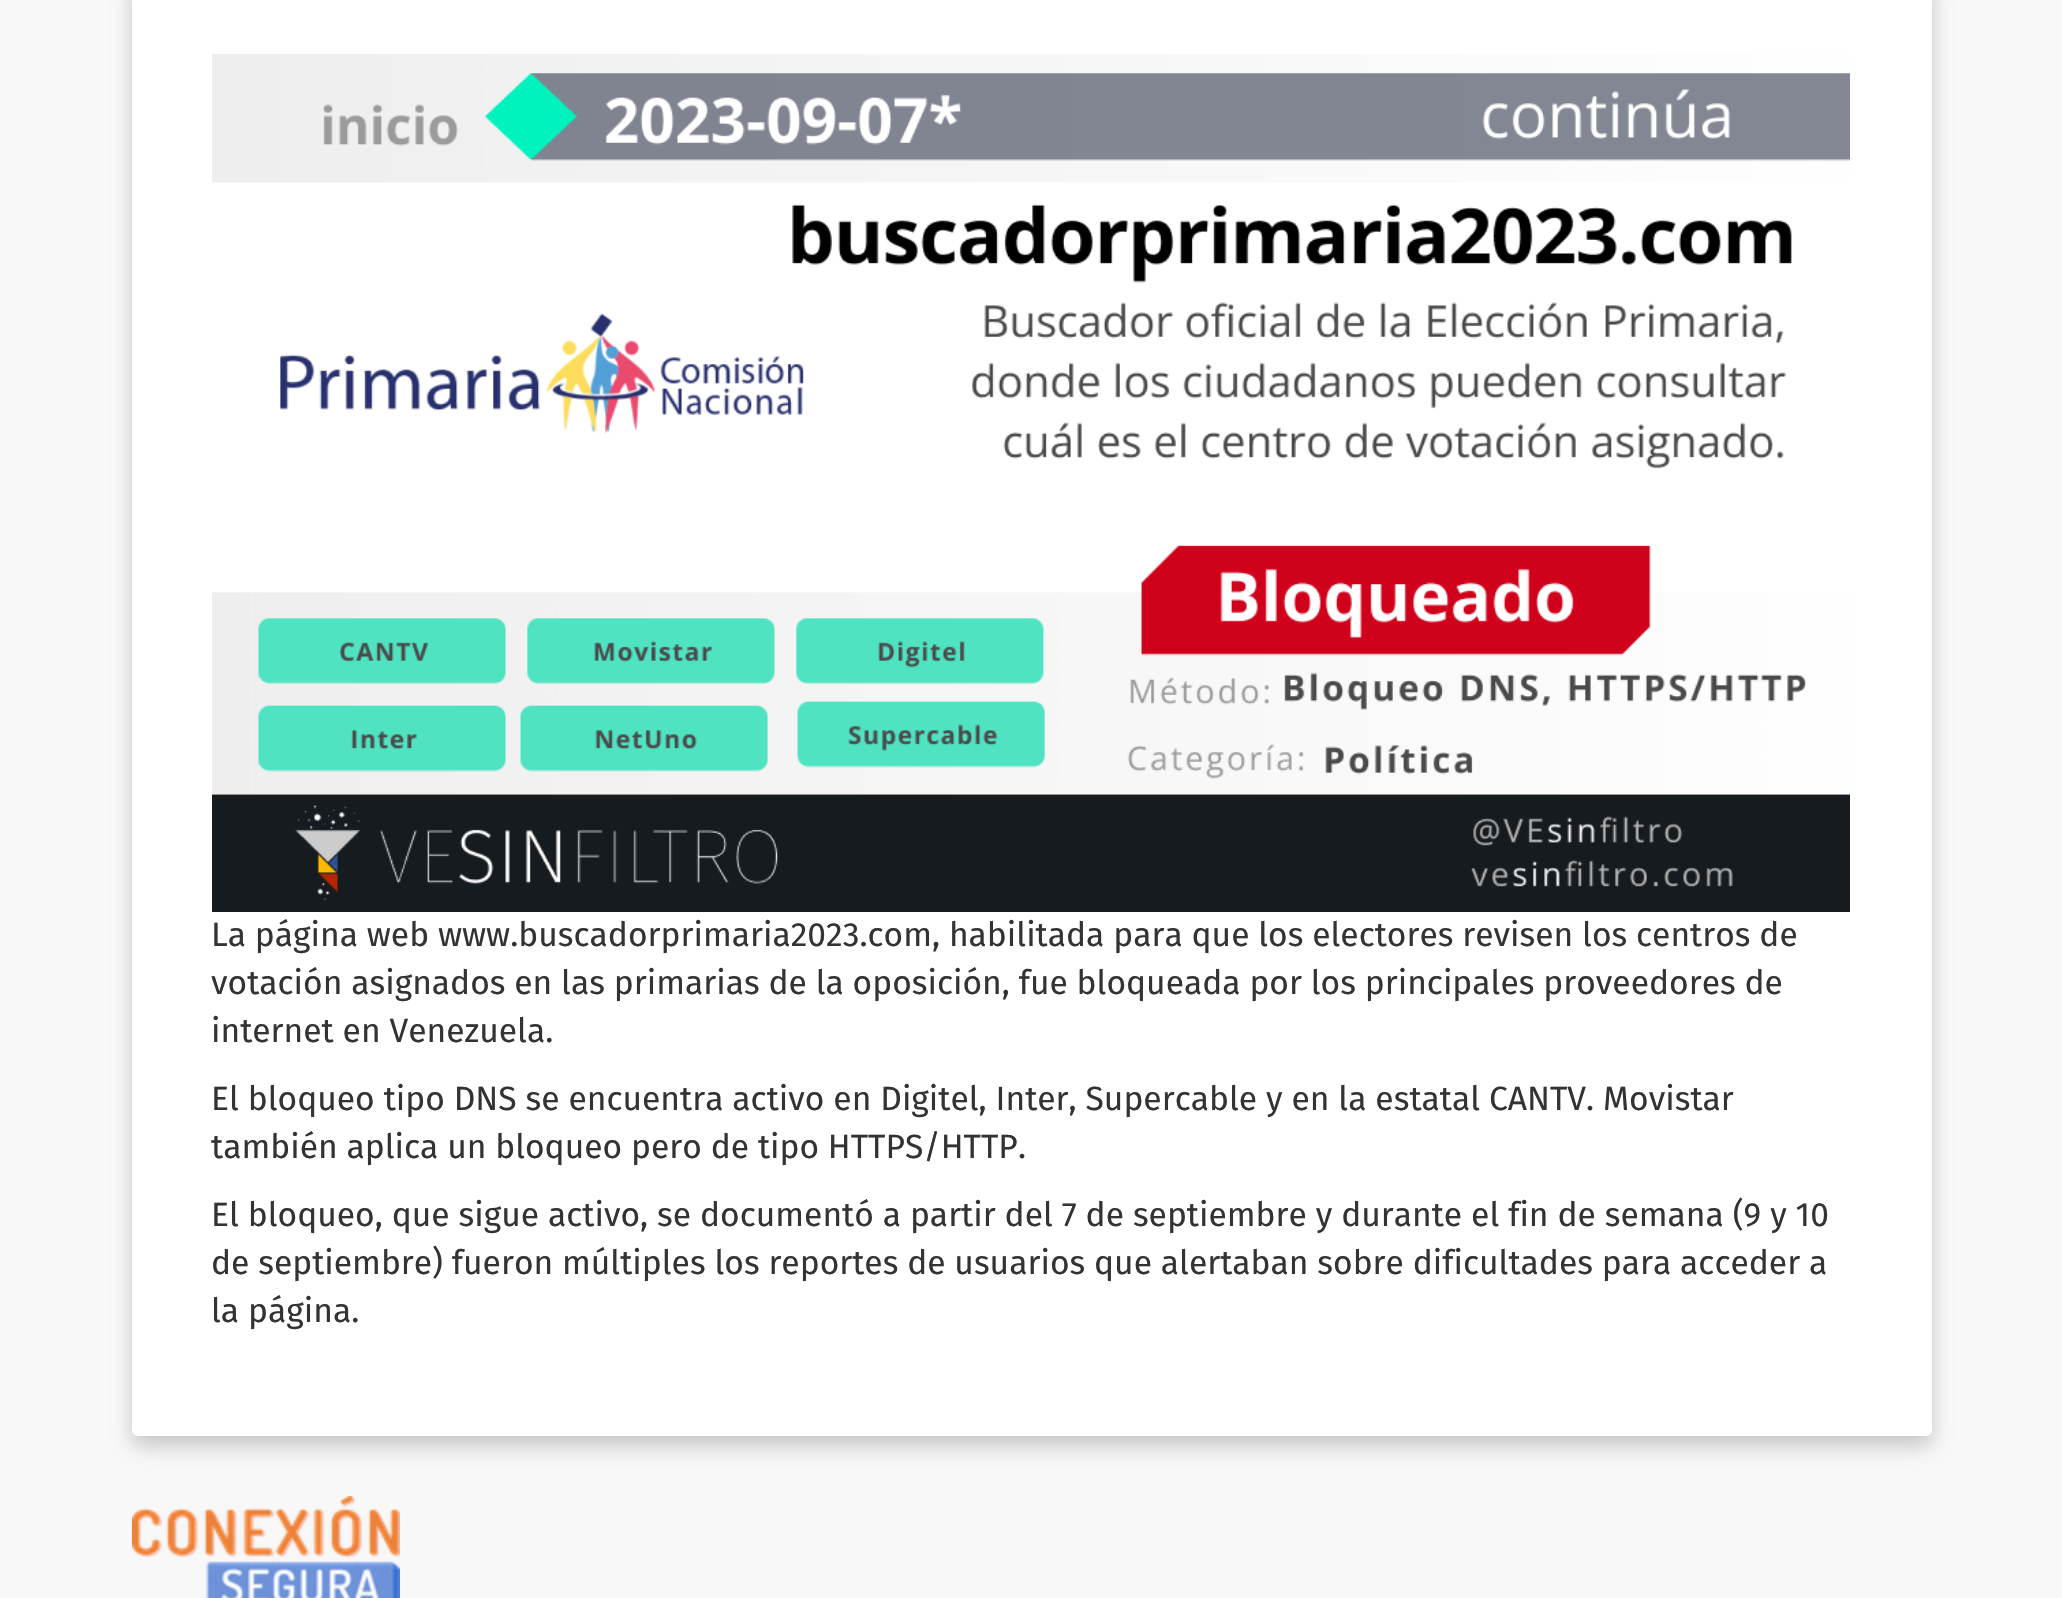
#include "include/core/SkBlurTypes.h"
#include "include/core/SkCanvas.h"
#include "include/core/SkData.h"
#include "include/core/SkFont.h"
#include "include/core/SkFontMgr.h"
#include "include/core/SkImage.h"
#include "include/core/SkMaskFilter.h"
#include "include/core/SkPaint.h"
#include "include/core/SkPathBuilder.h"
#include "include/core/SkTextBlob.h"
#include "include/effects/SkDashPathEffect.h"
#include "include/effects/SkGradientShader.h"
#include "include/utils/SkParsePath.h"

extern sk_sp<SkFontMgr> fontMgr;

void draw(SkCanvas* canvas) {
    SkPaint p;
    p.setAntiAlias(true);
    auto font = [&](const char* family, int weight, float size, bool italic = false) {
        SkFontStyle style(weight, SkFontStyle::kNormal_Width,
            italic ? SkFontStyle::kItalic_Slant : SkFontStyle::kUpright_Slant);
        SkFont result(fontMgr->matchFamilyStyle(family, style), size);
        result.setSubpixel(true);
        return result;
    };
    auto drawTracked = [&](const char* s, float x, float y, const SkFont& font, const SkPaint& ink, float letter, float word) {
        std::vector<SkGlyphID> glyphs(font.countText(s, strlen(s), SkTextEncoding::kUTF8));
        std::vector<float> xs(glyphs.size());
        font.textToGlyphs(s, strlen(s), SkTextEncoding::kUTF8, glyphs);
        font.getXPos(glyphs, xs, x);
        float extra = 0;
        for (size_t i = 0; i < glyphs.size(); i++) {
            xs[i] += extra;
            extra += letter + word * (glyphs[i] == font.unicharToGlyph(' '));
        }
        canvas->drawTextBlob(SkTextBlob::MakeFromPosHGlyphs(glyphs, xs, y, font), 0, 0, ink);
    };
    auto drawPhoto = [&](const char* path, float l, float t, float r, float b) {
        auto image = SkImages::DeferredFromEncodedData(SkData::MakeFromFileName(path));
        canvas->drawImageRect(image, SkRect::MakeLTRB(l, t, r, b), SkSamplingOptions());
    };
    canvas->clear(0xFFF8F8F8);
    p.setColor(0x33000000);
    p.setMaskFilter(SkMaskFilter::MakeBlur(kNormal_SkBlurStyle, 10));
    canvas->drawRoundRect(SkRect::MakeLTRB(132, -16, 1932, 1446), 6, 6, p);
    p.setMaskFilter(nullptr);
    p.setColor(0xFFFFFFFF);
    canvas->drawRoundRect(SkRect::MakeLTRB(132, -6, 1932, 1436), 6, 6, p);
    drawPhoto("media/1.png", 212, 54, 1850, 912);
    auto font1 = font("Fira Sans", 400, 33.6f);
    p.setColor(0xFF333333);
    drawTracked("La página web www.buscadorprimaria2023.com, habilitada para que los electores revisen los centros de", 211, 946, font1, p, 0, -0.1f);
    drawTracked("votación asignados en las primarias de la oposición, fue bloqueada por los principales proveedores de", 211, 994, font1, p, 0, -0.1f);
    canvas->drawString("internet en Venezuela.", 211, 1042, font1, p);
    canvas->drawString("El bloqueo tipo DNS se encuentra activo en Digitel, Inter, Supercable y en la estatal CANTV. Movistar", 211, 1110, font1, p);
    drawTracked("también aplica un bloqueo pero de tipo HTTPS/HTTP.", 211, 1158, font1, p, 0, -0.1f);
    canvas->drawString("El bloqueo, que sigue activo, se documentó a partir del 7 de septiembre y durante el fin de semana (9 y 10", 211, 1226, font1, p);
    drawTracked("de septiembre) fueron múltiples los reportes de usuarios que alertaban sobre dificultades para acceder a", 211, 1274, font1, p, 0, -0.1f);
    canvas->drawString("la página.", 211, 1322, font1, p);
    drawPhoto("media/2.png", 132, 1496, 400, 1598);
}
